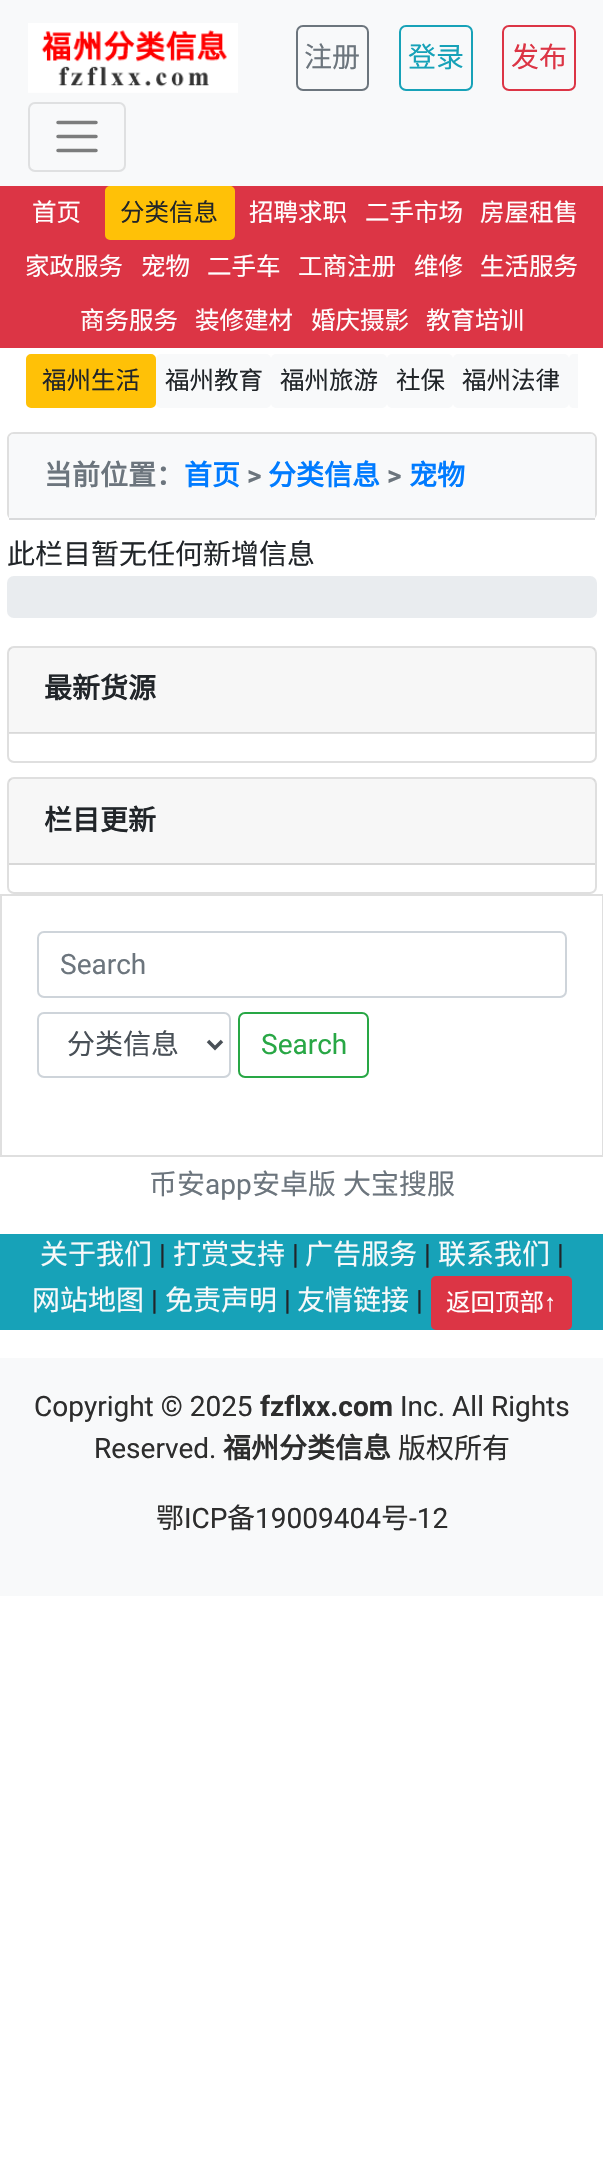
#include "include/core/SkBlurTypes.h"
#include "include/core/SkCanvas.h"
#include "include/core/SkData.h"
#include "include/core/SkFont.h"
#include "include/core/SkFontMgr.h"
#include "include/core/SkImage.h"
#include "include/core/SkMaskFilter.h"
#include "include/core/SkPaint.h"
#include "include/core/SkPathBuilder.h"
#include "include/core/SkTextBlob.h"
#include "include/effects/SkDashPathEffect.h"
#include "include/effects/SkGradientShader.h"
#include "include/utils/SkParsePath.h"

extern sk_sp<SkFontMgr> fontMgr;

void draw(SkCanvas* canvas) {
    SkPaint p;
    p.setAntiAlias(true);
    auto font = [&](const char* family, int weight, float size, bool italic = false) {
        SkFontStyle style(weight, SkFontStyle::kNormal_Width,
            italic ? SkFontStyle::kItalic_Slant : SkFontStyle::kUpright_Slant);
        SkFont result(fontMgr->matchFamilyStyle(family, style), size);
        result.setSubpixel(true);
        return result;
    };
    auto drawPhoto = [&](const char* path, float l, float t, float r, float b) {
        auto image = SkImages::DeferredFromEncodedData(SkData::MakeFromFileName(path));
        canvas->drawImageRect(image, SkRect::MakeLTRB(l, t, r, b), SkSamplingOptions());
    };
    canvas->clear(0xFFFFFFFF);
    p.setColor(0xFFF8F9FA);
    canvas->drawRect(SkRect::MakeLTRB(0, 0, 603, 186), p);
    drawPhoto("media/1.png", 28, 23, 238, 93);
    p.setStyle(SkPaint::kStroke_Style);
    p.setStrokeWidth(2);
    p.setColor(0xFF6C757D);
    canvas->drawRoundRect(SkRect::MakeLTRB(297, 26, 368, 90), 6, 6, p);
    auto font1 = font("Noto Sans CJK SC", 400, 28);
    p.setStyle(SkPaint::kFill_Style);
    canvas->drawString("注册", 304, 67, font1, p);
    p.setStyle(SkPaint::kStroke_Style);
    p.setColor(0xFF17A2B8);
    canvas->drawRoundRect(SkRect::MakeLTRB(400, 26, 472, 90), 6, 6, p);
    p.setStyle(SkPaint::kFill_Style);
    canvas->drawString("登录", 408, 67, font1, p);
    p.setStyle(SkPaint::kStroke_Style);
    p.setColor(0xFFDC3545);
    canvas->drawRoundRect(SkRect::MakeLTRB(503, 26, 575, 90), 6, 6, p);
    p.setStyle(SkPaint::kFill_Style);
    canvas->drawString("发布", 511, 67, font1, p);
    p.setStyle(SkPaint::kStroke_Style);
    p.setColor(0xFFDFE0E1);
    canvas->drawRoundRect(SkRect::MakeLTRB(29, 103, 125, 171), 6, 6, p);
    p.setStrokeWidth(3.5f);
    p.setStrokeCap(SkPaint::kRound_Cap);
    p.setColor(0xFF7C7D7D);
    canvas->drawPath(SkPathBuilder().moveTo(58, 122.5f).lineTo(96, 122.5f).moveTo(58, 136.5f).lineTo(96, 136.5f).moveTo(58, 150.5f).lineTo(96, 150.5f).detach(), p);
    p.setStyle(SkPaint::kFill_Style);
    p.setColor(0xFFDC3545);
    canvas->drawRect(SkRect::MakeLTRB(0, 186, 603, 348), p);
    auto font2 = font("Noto Sans CJK SC", 400, 24.5f);
    p.setColor(0xFFFFFFFF);
    canvas->drawString("首页", 32, 221, font2, p);
    p.setColor(0xFFFFC107);
    canvas->drawRoundRect(SkRect::MakeLTRB(106, 187, 234, 239), 4, 4, p);
    p.setStyle(SkPaint::kStroke_Style);
    p.setStrokeWidth(2);
    p.setStrokeCap(SkPaint::kButt_Cap);
    canvas->drawRoundRect(SkRect::MakeLTRB(106, 187, 234, 239), 4, 4, p);
    p.setStyle(SkPaint::kFill_Style);
    p.setColor(0xFF212529);
    canvas->drawString("分类信息", 120, 221, font2, p);
    p.setColor(0xFFFFFFFF);
    {
        const struct { const char* s; float x, y; } items[] = {
            {"招聘求职", 249, 221},
            {"二手市场", 365, 221},
            {"房屋租售", 480, 221},
            {"家政服务", 25, 275},
            {"宠物", 141, 275},
            {"二手车", 207, 275},
            {"工商注册", 298, 275},
            {"维修", 414, 275},
            {"生活服务", 480, 275},
            {"商务服务", 80, 329},
            {"装修建材", 195, 329},
            {"婚庆摄影", 311, 329},
            {"教育培训", 426, 329},
        };
        for (auto [s, x, y] : items) {
            canvas->drawString(s, x, y, font2, p);
        }
    }
    p.setColor(0xFFFFC107);
    canvas->drawRoundRect(SkRect::MakeLTRB(27, 355, 155, 407), 4, 4, p);
    p.setStyle(SkPaint::kStroke_Style);
    canvas->drawRoundRect(SkRect::MakeLTRB(27, 355, 155, 407), 4, 4, p);
    p.setStyle(SkPaint::kFill_Style);
    p.setColor(0xFF212529);
    canvas->drawString("福州生活", 42, 389, font2, p);
    p.setColor(0xFFF8F9FA);
    canvas->drawRoundRect(SkRect::MakeLTRB(156, 354, 271, 408), 5, 5, p);
    p.setColor(0xFF212529);
    canvas->drawString("福州教育", 165, 389, font2, p);
    p.setColor(0xFFF8F9FA);
    canvas->drawRoundRect(SkRect::MakeLTRB(271, 354, 387, 408), 5, 5, p);
    p.setColor(0xFF212529);
    canvas->drawString("福州旅游", 280, 389, font2, p);
    p.setColor(0xFFF8F9FA);
    canvas->drawRoundRect(SkRect::MakeLTRB(387, 354, 453, 408), 5, 5, p);
    p.setColor(0xFF212529);
    canvas->drawString("社保", 396, 389, font2, p);
    p.setColor(0xFFF8F9FA);
    canvas->drawRoundRect(SkRect::MakeLTRB(453, 354, 569, 408), 5, 5, p);
    p.setColor(0xFF212529);
    canvas->drawString("福州法律", 462, 389, font2, p);
    p.setColor(0xFFF8F9FA);
    canvas->drawPath(SkPathBuilder().moveTo(574, 354).lineTo(578, 354).lineTo(578, 408).lineTo(574, 408).cubicTo(571, 408, 569, 406, 569, 403).lineTo(569, 359).cubicTo(569, 356, 571, 354, 574, 354).close().detach(), p);
    p.setColor(0xFFDFDFDF);
    canvas->drawPath(SkPathBuilder(SkPathFillType::kEvenOdd).moveTo(14, 432).lineTo(590, 432).cubicTo(594, 432, 597, 435, 597, 439).lineTo(597, 513).cubicTo(597, 517, 594, 520, 590, 520).lineTo(14, 520).cubicTo(10, 520, 7, 517, 7, 513).lineTo(7, 439).cubicTo(7, 435, 10, 432, 14, 432).close().moveTo(14, 434).lineTo(590, 434).cubicTo(593, 434, 595, 436, 595, 439).lineTo(595, 513).cubicTo(595, 517, 593, 520, 590, 520).lineTo(14, 520).cubicTo(11, 520, 9, 517, 9, 513).lineTo(9, 439).cubicTo(9, 436, 11, 434, 14, 434).close().detach(), p);
    p.setColor(0xFFF8F9FA);
    canvas->drawPath(SkPathBuilder().moveTo(14, 434).lineTo(590, 434).cubicTo(593, 434, 595, 436, 595, 439).lineTo(595, 520).lineTo(9, 520).lineTo(9, 439).cubicTo(9, 436, 11, 434, 14, 434).close().detach(), p);
    p.setColor(0xFFD9DADB);
    canvas->drawRect(SkRect::MakeLTRB(9, 518, 595, 520), p);
    auto font3 = font("Noto Sans CJK SC", 700, 28);
    p.setColor(0xFF6C757D);
    canvas->drawString("当前位置：", 44, 485, font3, p);
    p.setColor(0xFF007BFF);
    canvas->drawString("首页", 184, 485, font3, p);
    auto font4 = font("Roboto", 700, 28);
    p.setColor(0xFF6C757D);
    canvas->drawString(">", 247, 485, font4, p);
    p.setColor(0xFF007BFF);
    canvas->drawString("分类信息", 268, 485, font3, p);
    p.setColor(0xFF6C757D);
    canvas->drawString(">", 387, 485, font4, p);
    p.setColor(0xFF007BFF);
    canvas->drawString("宠物", 409, 485, font3, p);
    p.setColor(0xFF212529);
    canvas->drawString("此栏目暂无任何新增信息", 7, 564, font1, p);
    p.setColor(0xFFE9ECEF);
    canvas->drawRoundRect(SkRect::MakeLTRB(7, 576, 597, 618), 7, 7, p);
    p.setStyle(SkPaint::kStroke_Style);
    p.setColor(0xFFDFDFDF);
    canvas->drawRoundRect(SkRect::MakeLTRB(8, 647, 596, 762), 6, 6, p);
    p.setStyle(SkPaint::kFill_Style);
    p.setColor(0x08000000);
    canvas->drawRect(SkRect::MakeLTRB(9, 648, 595, 733), p);
    p.setColor(0x1F000000);
    canvas->drawRect(SkRect::MakeLTRB(9, 732, 595, 734), p);
    p.setColor(0xFF212529);
    canvas->drawString("最新货源", 44, 698, font3, p);
    p.setStyle(SkPaint::kStroke_Style);
    p.setColor(0xFFDFDFDF);
    canvas->drawRoundRect(SkRect::MakeLTRB(8, 778, 596, 893), 6, 6, p);
    p.setStyle(SkPaint::kFill_Style);
    p.setColor(0x08000000);
    canvas->drawRect(SkRect::MakeLTRB(9, 779, 595, 863), p);
    p.setColor(0xFFD8D8D8);
    canvas->drawRect(SkRect::MakeLTRB(9, 863, 595, 865), p);
    p.setColor(0xFF212529);
    canvas->drawString("栏目更新", 44, 830, font3, p);
    p.setStyle(SkPaint::kStroke_Style);
    p.setColor(0xFFDFDFDF);
    canvas->drawRect(SkRect::MakeLTRB(1, 895, 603, 1156), p);
    p.setColor(0xFFCED4DA);
    canvas->drawRoundRect(SkRect::MakeLTRB(38, 932, 566, 997), 6, 6, p);
    auto font5 = font("Roboto", 400, 28);
    p.setStyle(SkPaint::kFill_Style);
    p.setColor(0xFF6C757D);
    canvas->drawString("Search", 60, 974, font5, p);
    p.setStyle(SkPaint::kStroke_Style);
    p.setColor(0xFFCED4DA);
    canvas->drawRoundRect(SkRect::MakeLTRB(38, 1013, 230, 1077), 6, 6, p);
    p.setStrokeWidth(3.5f);
    p.setColor(0xFF495057);
    canvas->drawPath(SkPathBuilder().moveTo(208, 1041).lineTo(215, 1048).lineTo(222, 1041).detach(), p);
    p.setStyle(SkPaint::kFill_Style);
    canvas->drawString("分类信息", 67, 1054, font1, p);
    p.setStyle(SkPaint::kStroke_Style);
    p.setStrokeWidth(2);
    p.setColor(0xFF28A745);
    canvas->drawRoundRect(SkRect::MakeLTRB(239, 1013, 368, 1077), 6, 6, p);
    p.setStyle(SkPaint::kFill_Style);
    canvas->drawString("Search", 261, 1054, font5, p);
    p.setColor(0xFF6C757D);
    canvas->drawString("币安", 149, 1194, font1, p);
    canvas->drawString("app", 205, 1194, font5, p);
    canvas->drawString("安卓版", 252, 1194, font1, p);
    canvas->drawString("大宝搜服", 343, 1194, font1, p);
    p.setColor(0xFF17A2B8);
    canvas->drawRect(SkRect::MakeLTRB(0, 1234, 603, 1330), p);
    p.setColor(0xFFF8F9FA);
    canvas->drawString("关于我们", 40, 1264, font1, p);
    p.setColor(0xFF212529);
    canvas->drawString("|", 159, 1264, font5, p);
    p.setColor(0xFFF8F9FA);
    canvas->drawString("打赏支持", 173, 1264, font1, p);
    p.setColor(0xFF212529);
    canvas->drawString("|", 292, 1264, font5, p);
    p.setColor(0xFFF8F9FA);
    canvas->drawString("广告服务", 305, 1264, font1, p);
    p.setColor(0xFF212529);
    canvas->drawString("|", 424, 1264, font5, p);
    p.setColor(0xFFF8F9FA);
    canvas->drawString("联系我们", 438, 1264, font1, p);
    p.setColor(0xFF212529);
    canvas->drawString("|", 557, 1264, font5, p);
    p.setColor(0xFFF8F9FA);
    canvas->drawString("网站地图", 32, 1310, font1, p);
    p.setColor(0xFF212529);
    canvas->drawString("|", 151, 1310, font5, p);
    p.setColor(0xFFF8F9FA);
    canvas->drawString("免责声明", 165, 1310, font1, p);
    p.setColor(0xFF212529);
    canvas->drawString("|", 284, 1310, font5, p);
    p.setColor(0xFFF8F9FA);
    canvas->drawString("友情链接", 297, 1310, font1, p);
    p.setColor(0xFF212529);
    canvas->drawString("|", 416, 1310, font5, p);
    p.setColor(0xFFDC3545);
    canvas->drawRoundRect(SkRect::MakeLTRB(432, 1277, 571, 1329), 4, 4, p);
    p.setStyle(SkPaint::kStroke_Style);
    canvas->drawRoundRect(SkRect::MakeLTRB(432, 1277, 571, 1329), 4, 4, p);
    p.setStyle(SkPaint::kFill_Style);
    p.setColor(0xFFFFFFFF);
    canvas->drawString("返回顶部", 446, 1311, font2, p);
    auto font6 = font("Liberation Sans", 400, 24.5f);
    canvas->drawString("↑", 544, 1311, font6, p);
    p.setColor(0xFFF8F9FA);
    canvas->drawRect(SkRect::MakeLTRB(0, 1358, 603, 1596), p);
    p.setColor(0xFF2D2D2D);
    canvas->drawString("Copyright © 2025", 34, 1416, font5, p);
    canvas->drawString("fzflxx.com", 260, 1416, font4, p);
    canvas->drawString("Inc. All Rights", 400, 1416, font5, p);
    canvas->drawString("Reserved.", 94, 1458, font5, p);
    canvas->drawString("福州分类信息", 223, 1458, font3, p);
    canvas->drawString("版权所有", 398, 1458, font1, p);
    canvas->drawString("鄂", 156, 1528, font1, p);
    canvas->drawString("ICP", 184, 1528, font5, p);
    canvas->drawString("备", 227, 1528, font1, p);
    canvas->drawString("19009404", 255, 1528, font5, p);
    canvas->drawString("号", 381, 1528, font1, p);
    canvas->drawString("-12", 409, 1528, font5, p);
}
